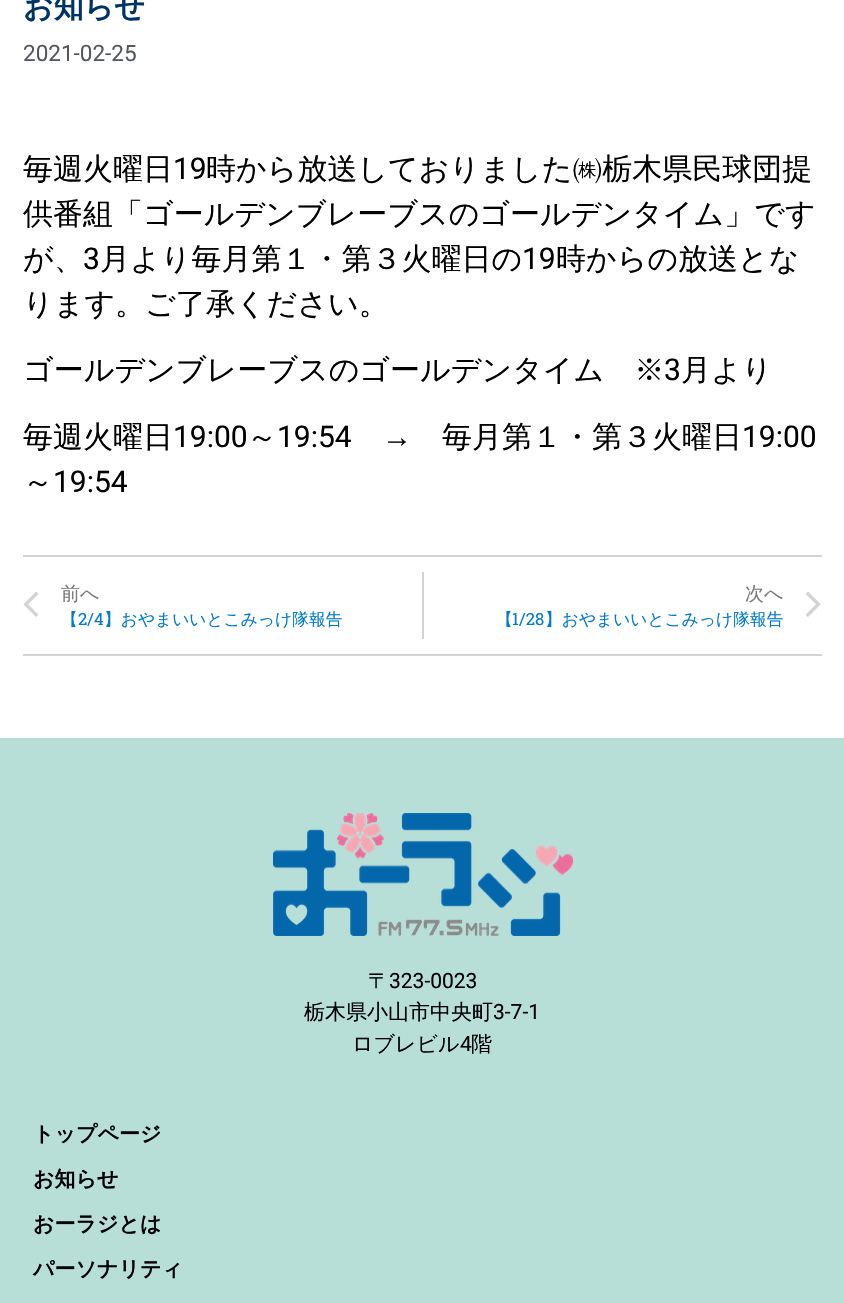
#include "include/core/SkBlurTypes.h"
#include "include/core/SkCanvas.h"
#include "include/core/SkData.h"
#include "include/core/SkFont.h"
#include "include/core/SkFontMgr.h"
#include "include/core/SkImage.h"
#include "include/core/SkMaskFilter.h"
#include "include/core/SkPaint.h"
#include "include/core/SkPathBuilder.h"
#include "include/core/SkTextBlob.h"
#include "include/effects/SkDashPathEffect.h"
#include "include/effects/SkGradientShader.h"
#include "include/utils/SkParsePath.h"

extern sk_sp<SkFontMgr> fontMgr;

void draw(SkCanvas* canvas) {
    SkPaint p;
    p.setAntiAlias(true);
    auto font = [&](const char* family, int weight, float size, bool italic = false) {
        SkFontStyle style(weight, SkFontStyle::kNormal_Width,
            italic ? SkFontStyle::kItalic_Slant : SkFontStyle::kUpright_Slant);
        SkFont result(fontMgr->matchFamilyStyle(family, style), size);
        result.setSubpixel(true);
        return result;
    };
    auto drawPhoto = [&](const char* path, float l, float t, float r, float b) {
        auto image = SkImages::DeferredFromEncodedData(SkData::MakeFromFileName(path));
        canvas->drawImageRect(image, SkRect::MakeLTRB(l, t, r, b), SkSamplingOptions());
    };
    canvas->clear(0xFFFFFFFF);
    auto font1 = font("WenQuanYi Zen Hei", 700, 30);
    p.setColor(0xFF003366);
    canvas->drawString("お知らせ", 23, 17, font1, p);
    auto font2 = font("Roboto", 400, 22.5f);
    p.setColor(0xFF54595F);
    canvas->drawString("2021-02-25", 23, 61, font2, p);
    auto font3 = font("WenQuanYi Zen Hei", 500, 30);
    p.setColor(0xFF000000);
    canvas->drawString("毎週火曜日", 23, 179, font3, p);
    auto font4 = font("Roboto", 400, 30);
    canvas->drawString("19", 173, 179, font4, p);
    {
        const struct { const char* s; float x, y; } items[] = {
            {"時から放送しておりました㈱栃木県民球団提", 206, 179},
            {"供番組「ゴールデンブレーブスのゴールデンタイム」です", 23, 224},
            {"が、", 23, 269},
        };
        for (auto [s, x, y] : items) {
            canvas->drawString(s, x, y, font3, p);
        }
    }
    canvas->drawString("3", 83, 269, font4, p);
    canvas->drawString("月より毎月第１・第３火曜日の", 100, 269, font3, p);
    canvas->drawString("19", 522, 269, font4, p);
    {
        const struct { const char* s; float x, y; } items[] = {
            {"時からの放送とな", 556, 269},
            {"ります。ご了承ください。", 23, 314},
            {"ゴールデンブレーブスのゴールデンタイム　※", 23, 380},
        };
        for (auto [s, x, y] : items) {
            canvas->drawString(s, x, y, font3, p);
        }
    }
    canvas->drawString("3", 664, 380, font4, p);
    canvas->drawString("月より", 681, 380, font3, p);
    canvas->drawString("毎週火曜日", 23, 447, font3, p);
    canvas->drawString("19:00", 173, 447, font4, p);
    canvas->drawString("～", 247, 447, font3, p);
    canvas->drawString("19:54", 277, 447, font4, p);
    auto font5 = font("Liberation Sans", 400, 30);
    canvas->drawString("→", 382, 447, font5, p);
    canvas->drawString("毎月第１・第３火曜日", 442, 447, font3, p);
    canvas->drawString("19:00", 742, 447, font4, p);
    canvas->drawString("～", 23, 492, font3, p);
    canvas->drawString("19:54", 53, 492, font4, p);
    p.setColor(0xFFD4D4D4);
    canvas->drawRect(SkRect::MakeLTRB(23, 555, 822, 557), p);
    canvas->drawRect(SkRect::MakeLTRB(23, 654, 822, 656), p);
    drawPhoto("media/1.png", 23, 591, 39, 617);
    auto font6 = font("WenQuanYi Zen Hei", 500, 19);
    p.setColor(0xFF7A7A7A);
    canvas->drawString("前へ", 61, 600, font6, p);
    auto font7 = font("WenQuanYi Zen Hei", 500, 16.75f);
    p.setColor(0xFF017CCC);
    canvas->drawString("【", 61, 625, font7, p);
    auto font8 = font("Roboto Slab", 400, 16.75f);
    canvas->drawString("2/4", 78, 625, font8, p);
    canvas->drawString("】おやまいいとこみっけ隊報告", 104, 625, font7, p);
    p.setColor(0xFFD4D4D4);
    canvas->drawRect(SkRect::MakeLTRB(422, 572, 424, 639), p);
    p.setColor(0xFF7A7A7A);
    canvas->drawString("次へ", 745, 600, font6, p);
    p.setColor(0xFF017CCC);
    canvas->drawString("【", 496, 625, font7, p);
    canvas->drawString("1/28", 512, 625, font8, p);
    canvas->drawString("】おやまいいとこみっけ隊報告", 545, 625, font7, p);
    drawPhoto("media/2.png", 806, 592, 821, 617);
    p.setColor(0xFFB8DED8);
    canvas->drawRect(SkRect::MakeLTRB(0, 738, 844, 1303), p);
    drawPhoto("media/3.png", 273, 813, 573, 936);
    auto font9 = font("WenQuanYi Zen Hei", 500, 21);
    p.setColor(0xFF000000);
    canvas->drawString("〒", 368, 988, font9, p);
    auto font10 = font("Roboto", 400, 21);
    canvas->drawString("323-0023", 389, 988, font10, p);
    canvas->drawString("栃木県小山市中央町", 304, 1019, font9, p);
    canvas->drawString("3-7-1", 493, 1019, font10, p);
    canvas->drawString("ロブレビル", 352, 1051, font9, p);
    canvas->drawString("4", 460, 1051, font10, p);
    canvas->drawString("階", 471, 1051, font9, p);
    auto font11 = font("WenQuanYi Zen Hei", 700, 21);
    {
        const struct { const char* s; float x, y; } items[] = {
            {"トップページ", 33, 1141},
            {"お知らせ", 33, 1186},
            {"おーラジとは", 33, 1231},
            {"パーソナリティ", 33, 1276},
        };
        for (auto [s, x, y] : items) {
            canvas->drawString(s, x, y, font11, p);
        }
    }
}
